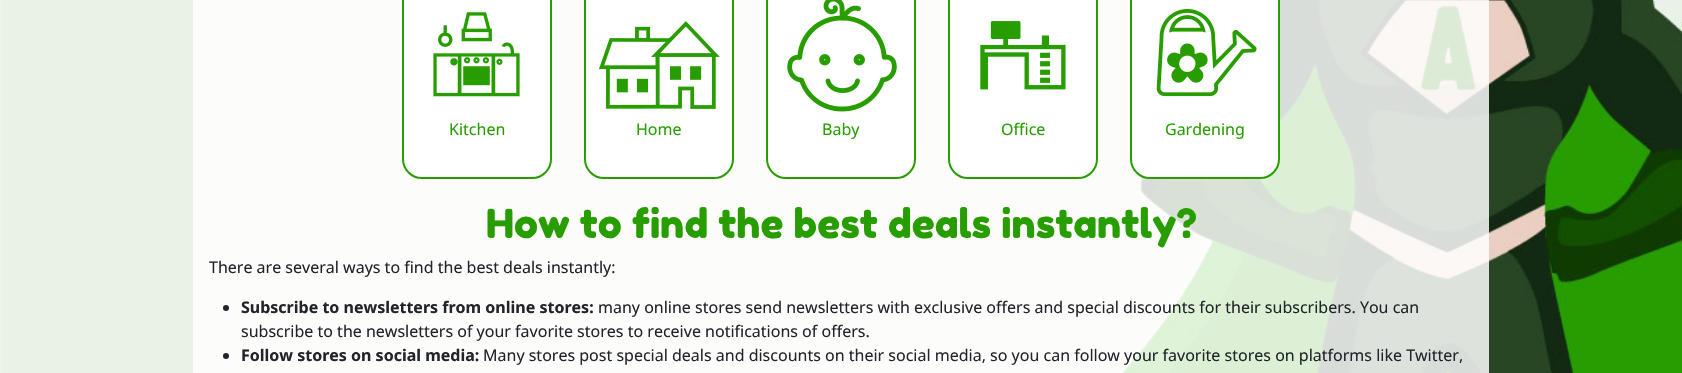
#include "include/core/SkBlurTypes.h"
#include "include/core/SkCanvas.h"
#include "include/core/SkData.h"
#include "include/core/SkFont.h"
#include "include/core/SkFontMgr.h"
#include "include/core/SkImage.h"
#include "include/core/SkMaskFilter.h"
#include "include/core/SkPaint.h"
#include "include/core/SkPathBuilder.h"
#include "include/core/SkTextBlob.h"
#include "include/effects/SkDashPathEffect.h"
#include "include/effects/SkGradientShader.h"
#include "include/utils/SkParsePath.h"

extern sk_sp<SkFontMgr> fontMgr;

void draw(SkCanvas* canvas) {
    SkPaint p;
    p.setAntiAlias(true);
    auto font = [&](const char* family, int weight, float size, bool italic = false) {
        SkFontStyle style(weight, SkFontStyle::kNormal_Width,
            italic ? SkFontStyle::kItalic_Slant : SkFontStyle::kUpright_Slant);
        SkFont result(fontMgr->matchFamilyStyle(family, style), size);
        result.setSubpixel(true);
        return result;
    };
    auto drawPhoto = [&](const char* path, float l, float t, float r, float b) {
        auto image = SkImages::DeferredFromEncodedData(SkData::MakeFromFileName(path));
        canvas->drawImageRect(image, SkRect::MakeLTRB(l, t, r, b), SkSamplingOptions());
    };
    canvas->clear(0xFFFFFFFF);
    drawPhoto("media/1.png", 0, 0, 1682, 373);
    p.setColor(0xD6FFFFFF);
    canvas->drawRect(SkRect::MakeLTRB(193, 0, 1489, 373), p);
    p.setColor(0xFFFFFFFF);
    canvas->drawRoundRect(SkRect::MakeLTRB(403, -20, 551, 178), 19, 19, p);
    p.setStyle(SkPaint::kStroke_Style);
    p.setStrokeWidth(2);
    p.setColor(0xFF279D00);
    canvas->drawRoundRect(SkRect::MakeLTRB(403, -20, 551, 178), 19, 19, p);
    drawPhoto("media/2.png", 433, 12, 520, 97);
    auto font1 = font("Noto Sans", 400, 16);
    p.setStyle(SkPaint::kFill_Style);
    canvas->drawString("Kitchen", 449, 135, font1, p);
    p.setColor(0xFFFFFFFF);
    canvas->drawRoundRect(SkRect::MakeLTRB(585, -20, 733, 178), 19, 19, p);
    p.setStyle(SkPaint::kStroke_Style);
    p.setColor(0xFF279D00);
    canvas->drawRoundRect(SkRect::MakeLTRB(585, -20, 733, 178), 19, 19, p);
    drawPhoto("media/3.png", 599, 21, 720, 109);
    p.setStyle(SkPaint::kFill_Style);
    canvas->drawString("Home", 636, 135, font1, p);
    p.setColor(0xFFFFFFFF);
    canvas->drawRoundRect(SkRect::MakeLTRB(767, -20, 915, 178), 19, 19, p);
    p.setStyle(SkPaint::kStroke_Style);
    p.setColor(0xFF279D00);
    canvas->drawRoundRect(SkRect::MakeLTRB(767, -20, 915, 178), 19, 19, p);
    drawPhoto("media/4.png", 787, 0, 897, 112);
    p.setStyle(SkPaint::kFill_Style);
    canvas->drawString("Baby", 822, 135, font1, p);
    p.setColor(0xFFFFFFFF);
    canvas->drawRoundRect(SkRect::MakeLTRB(949, -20, 1097, 178), 19, 19, p);
    p.setStyle(SkPaint::kStroke_Style);
    p.setColor(0xFF279D00);
    canvas->drawRoundRect(SkRect::MakeLTRB(949, -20, 1097, 178), 19, 19, p);
    drawPhoto("media/5.png", 980, 21, 1066, 90);
    p.setStyle(SkPaint::kFill_Style);
    canvas->drawString("Office", 1001, 135, font1, p);
    p.setColor(0xFFFFFFFF);
    canvas->drawRoundRect(SkRect::MakeLTRB(1131, -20, 1279, 178), 19, 19, p);
    p.setStyle(SkPaint::kStroke_Style);
    p.setColor(0xFF279D00);
    canvas->drawRoundRect(SkRect::MakeLTRB(1131, -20, 1279, 178), 19, 19, p);
    drawPhoto("media/6.png", 1156, 9, 1257, 97);
    p.setStyle(SkPaint::kFill_Style);
    canvas->drawString("Gardening", 1165, 135, font1, p);
    auto font2 = font("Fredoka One", 400, 40);
    canvas->drawString("How to find the best deals instantly?", 486, 238, font2, p);
    p.setColor(0xFF212529);
    canvas->drawString("There are several ways to find the best deals instantly:", 209, 273, font1, p);
    canvas->drawCircle(226, 308, 3, p);
    auto font3 = font("Noto Sans", 700, 16);
    canvas->drawString("Subscribe to newsletters from online stores:", 241, 313, font3, p);
    canvas->drawString("many online stores send newsletters with exclusive offers and special discounts for their subscribers. You can", 598, 313, font1, p);
    canvas->drawString("subscribe to the newsletters of your favorite stores to receive notifications of offers.", 241, 337, font1, p);
    canvas->drawCircle(226, 356, 3, p);
    canvas->drawString("Follow stores on social media:", 241, 361, font3, p);
    canvas->drawString("Many stores post special deals and discounts on their social media, so you can follow your favorite stores on platforms like Twitter,", 483, 361, font1, p);
}
